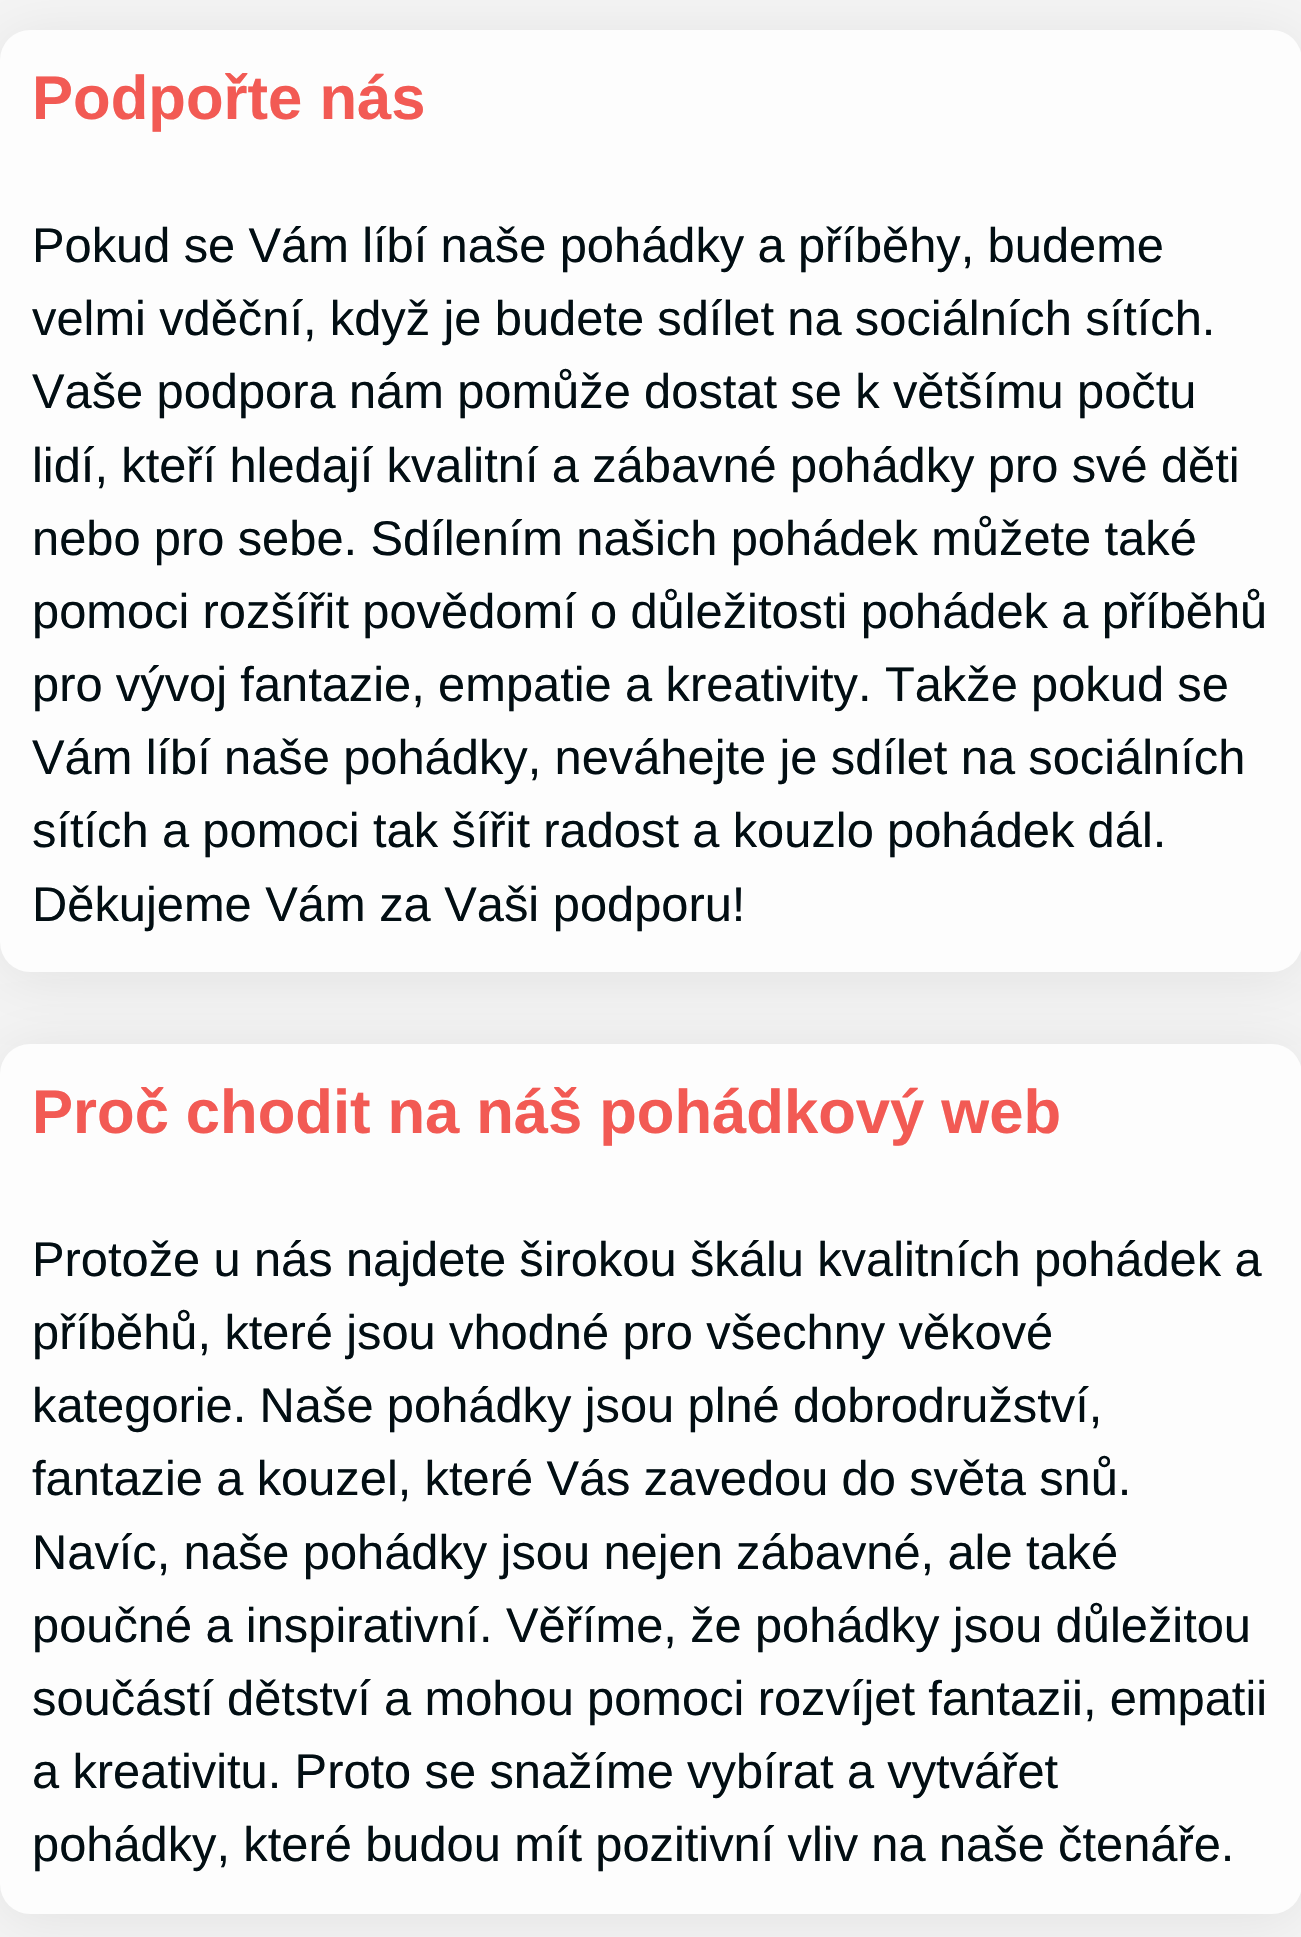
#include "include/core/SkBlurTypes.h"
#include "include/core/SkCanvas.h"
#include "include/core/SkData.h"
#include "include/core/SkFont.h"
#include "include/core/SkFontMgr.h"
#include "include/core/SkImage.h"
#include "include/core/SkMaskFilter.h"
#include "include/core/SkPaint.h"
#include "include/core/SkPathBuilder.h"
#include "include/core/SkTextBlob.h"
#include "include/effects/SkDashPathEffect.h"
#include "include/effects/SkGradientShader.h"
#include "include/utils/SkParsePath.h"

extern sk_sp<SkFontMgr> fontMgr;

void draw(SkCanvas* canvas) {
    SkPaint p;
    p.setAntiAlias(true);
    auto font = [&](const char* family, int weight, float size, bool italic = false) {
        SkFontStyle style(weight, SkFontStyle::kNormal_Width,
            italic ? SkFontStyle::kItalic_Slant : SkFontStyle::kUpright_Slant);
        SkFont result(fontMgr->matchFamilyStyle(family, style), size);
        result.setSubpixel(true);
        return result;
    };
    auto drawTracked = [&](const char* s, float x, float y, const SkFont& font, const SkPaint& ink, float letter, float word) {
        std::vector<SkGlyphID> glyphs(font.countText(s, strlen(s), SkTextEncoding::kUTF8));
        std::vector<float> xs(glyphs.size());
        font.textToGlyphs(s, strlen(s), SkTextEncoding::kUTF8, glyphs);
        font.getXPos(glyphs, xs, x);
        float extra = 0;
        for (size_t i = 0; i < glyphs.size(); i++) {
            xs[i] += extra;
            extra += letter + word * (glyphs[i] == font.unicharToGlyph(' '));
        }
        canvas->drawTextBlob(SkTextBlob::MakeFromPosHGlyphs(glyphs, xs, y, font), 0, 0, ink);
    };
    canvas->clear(0xFFF5F5F5);
    p.setColor(0x14000000);
    p.setMaskFilter(SkMaskFilter::MakeBlur(kNormal_SkBlurStyle, 30));
    canvas->drawRoundRect(SkRect::MakeLTRB(0, 36, 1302, 978), 30, 30, p);
    p.setMaskFilter(nullptr);
    p.setColor(0xFFFDFDFD);
    canvas->drawRoundRect(SkRect::MakeLTRB(0, 30, 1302, 972), 30, 30, p);
    auto font1 = font("Liberation Sans", 700, 61.6f);
    p.setColor(0xFFF25A54);
    canvas->drawString("Podpořte nás", 32, 119, font1, p);
    auto font2 = font("Liberation Sans", 400, 48.8f);
    p.setColor(0xFF020E13);
    {
        const struct { const char* s; float x, y; } items[] = {
            {"Pokud se Vám líbí naše pohádky a příběhy, budeme", 32, 262},
            {"velmi vděční, když je budete sdílet na sociálních sítích.", 32, 335},
            {"Vaše podpora nám pomůže dostat se k většímu počtu", 32, 408},
            {"lidí, kteří hledají kvalitní a zábavné pohádky pro své děti", 32, 482},
            {"nebo pro sebe. Sdílením našich pohádek můžete také", 32, 555},
            {"pomoci rozšířit povědomí o důležitosti pohádek a příběhů", 32, 628},
            {"pro vývoj fantazie, empatie a kreativity. Takže pokud se", 32, 701},
            {"Vám líbí naše pohádky, neváhejte je sdílet na sociálních", 32, 774},
            {"sítích a pomoci tak šířit radost a kouzlo pohádek dál.", 32, 847},
        };
        for (auto [s, x, y] : items) {
            drawTracked(s, x, y, font2, p, 0, -0.25f);
        }
    }
    canvas->drawString("Děkujeme Vám za Vaši podporu!", 32, 921, font2, p);
    p.setColor(0x14000000);
    p.setMaskFilter(SkMaskFilter::MakeBlur(kNormal_SkBlurStyle, 30));
    canvas->drawRoundRect(SkRect::MakeLTRB(0, 1050, 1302, 1920), 30, 30, p);
    p.setMaskFilter(nullptr);
    p.setColor(0xFFFDFDFD);
    canvas->drawRoundRect(SkRect::MakeLTRB(0, 1044, 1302, 1914), 30, 30, p);
    p.setColor(0xFFF25A54);
    drawTracked("Proč chodit na náš pohádkový web", 32, 1133, font1, p, 0, -0.25f);
    p.setColor(0xFF020E13);
    {
        const struct { const char* s; float x, y; } items[] = {
            {"Protože u nás najdete širokou škálu kvalitních pohádek a", 32, 1276},
            {"příběhů, které jsou vhodné pro všechny věkové", 32, 1349},
            {"kategorie. Naše pohádky jsou plné dobrodružství,", 32, 1422},
            {"fantazie a kouzel, které Vás zavedou do světa snů.", 32, 1495},
            {"Navíc, naše pohádky jsou nejen zábavné, ale také", 32, 1569},
            {"poučné a inspirativní. Věříme, že pohádky jsou důležitou", 32, 1642},
            {"součástí dětství a mohou pomoci rozvíjet fantazii, empatii", 32, 1715},
            {"a kreativitu. Proto se snažíme vybírat a vytvářet", 32, 1788},
            {"pohádky, které budou mít pozitivní vliv na naše čtenáře.", 32, 1861},
        };
        for (auto [s, x, y] : items) {
            drawTracked(s, x, y, font2, p, 0, -0.25f);
        }
    }
}
